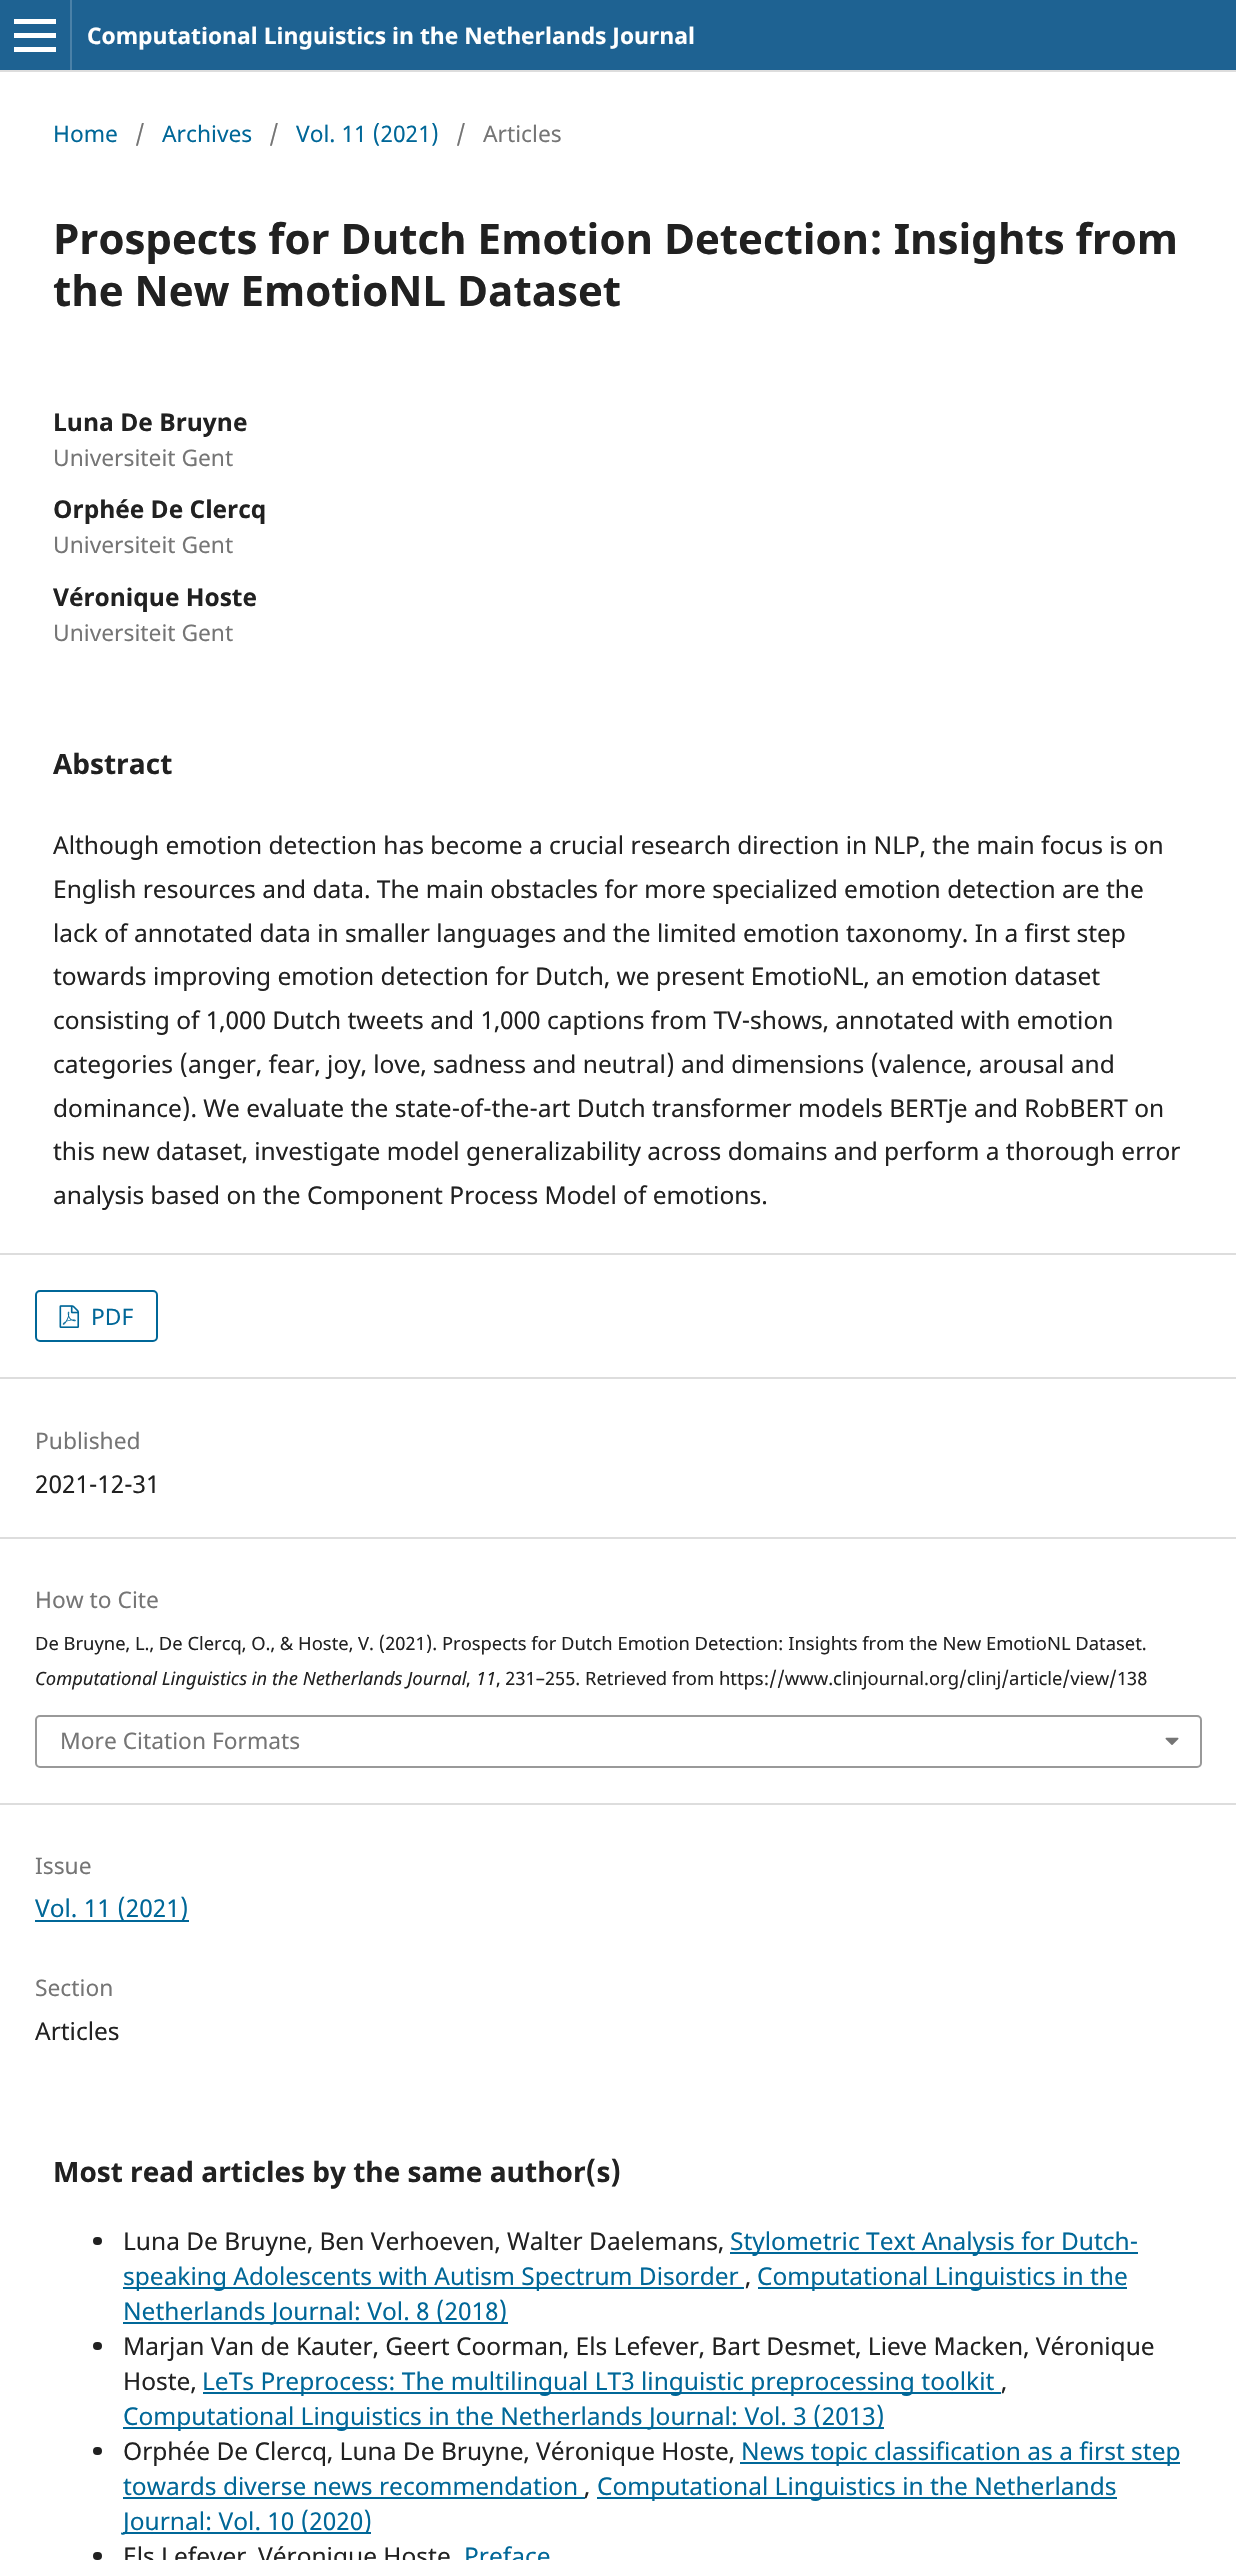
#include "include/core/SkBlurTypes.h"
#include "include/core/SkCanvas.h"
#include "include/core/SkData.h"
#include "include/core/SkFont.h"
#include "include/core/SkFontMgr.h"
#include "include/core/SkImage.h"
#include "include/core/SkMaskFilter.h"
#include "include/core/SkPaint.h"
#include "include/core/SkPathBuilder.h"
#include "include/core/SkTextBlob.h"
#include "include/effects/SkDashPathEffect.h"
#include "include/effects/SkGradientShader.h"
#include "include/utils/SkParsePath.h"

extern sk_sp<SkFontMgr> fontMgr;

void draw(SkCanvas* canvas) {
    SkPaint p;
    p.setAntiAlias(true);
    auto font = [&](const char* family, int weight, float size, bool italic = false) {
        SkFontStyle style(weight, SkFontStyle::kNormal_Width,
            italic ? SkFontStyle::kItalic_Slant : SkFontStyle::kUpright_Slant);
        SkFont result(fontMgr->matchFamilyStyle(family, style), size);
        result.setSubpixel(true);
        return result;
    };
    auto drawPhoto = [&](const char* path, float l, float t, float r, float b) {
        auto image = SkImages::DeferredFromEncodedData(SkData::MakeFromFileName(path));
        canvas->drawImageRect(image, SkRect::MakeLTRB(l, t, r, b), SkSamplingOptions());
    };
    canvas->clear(0xFFFFFFFF);
    {
        const struct { float l, t, r, b; SkColor color; } items[] = {
            {0, 0, 1236, 70, 0xFF1E6292},
            {0, 70, 1236, 72, 0xFFDDDDDD},
            {70, 0, 72, 70, 0xFF4B81A8},
            {14, 47, 56, 52, 0xFFFFFFFF},
            {14, 19, 56, 24, 0xFFFFFFFF},
            {14, 33, 56, 38, 0xFFFFFFFF},
        };
        for (auto [l, t, r, b, color] : items) {
            p.setColor(color);
            canvas->drawRect(SkRect::MakeLTRB(l, t, r, b), p);
        }
    }
    auto font1 = font("Noto Sans", 700, 22.8f);
    canvas->drawString("Computational Linguistics in the Netherlands Journal", 87, 44, font1, p);
    auto font2 = font("Noto Sans", 400, 22.8f);
    p.setColor(0xFF006798);
    canvas->drawString("Home", 53, 142, font2, p);
    p.setColor(0xFF757575);
    canvas->drawString("/", 135, 142, font2, p);
    p.setColor(0xFF006798);
    canvas->drawString("Archives", 162, 142, font2, p);
    p.setColor(0xFF757575);
    canvas->drawString("/", 269, 142, font2, p);
    p.setColor(0xFF006798);
    canvas->drawString("Vol. 11 (2021)", 296, 142, font2, p);
    p.setColor(0xFF757575);
    canvas->drawString("/", 456, 142, font2, p);
    canvas->drawString("Articles", 483, 142, font2, p);
    auto font3 = font("Noto Sans", 700, 42);
    p.setColor(0xFF212121);
    canvas->drawString("Prospects for Dutch Emotion Detection: Insights from", 53, 254, font3, p);
    canvas->drawString("the New EmotioNL Dataset", 53, 306, font3, p);
    auto font4 = font("Noto Sans", 700, 24.5f);
    canvas->drawString("Luna De Bruyne", 53, 431, font4, p);
    p.setColor(0xFF757575);
    canvas->drawString("Universiteit Gent", 53, 466, font2, p);
    p.setColor(0xFF212121);
    canvas->drawString("Orphée De Clercq", 53, 518, font4, p);
    p.setColor(0xFF757575);
    canvas->drawString("Universiteit Gent", 53, 553, font2, p);
    p.setColor(0xFF212121);
    canvas->drawString("Véronique Hoste", 53, 606, font4, p);
    p.setColor(0xFF757575);
    canvas->drawString("Universiteit Gent", 53, 641, font2, p);
    auto font5 = font("Noto Sans", 700, 28);
    p.setColor(0xFF212121);
    canvas->drawString("Abstract", 53, 774, font5, p);
    auto font6 = font("Noto Sans", 400, 24.5f);
    {
        const struct { const char* s; float x, y; } items[] = {
            {"Although emotion detection has become a crucial research direction in NLP, the main focus is on", 53, 854},
            {"English resources and data. The main obstacles for more specialized emotion detection are the", 53, 898},
            {"lack of annotated data in smaller languages and the limited emotion taxonomy. In a first step", 53, 942},
            {"towards improving emotion detection for Dutch, we present EmotioNL, an emotion dataset", 53, 985},
            {"consisting of 1,000 Dutch tweets and 1,000 captions from TV-shows, annotated with emotion", 53, 1029},
            {"categories (anger, fear, joy, love, sadness and neutral) and dimensions (valence, arousal and", 53, 1073},
            {"dominance). We evaluate the state-of-the-art Dutch transformer models BERTje and RobBERT on", 53, 1117},
            {"this new dataset, investigate model generalizability across domains and perform a thorough error", 53, 1160},
            {"analysis based on the Component Process Model of emotions.", 53, 1204},
        };
        for (auto [s, x, y] : items) {
            canvas->drawString(s, x, y, font6, p);
        }
    }
    p.setColor(0xFFDDDDDD);
    canvas->drawRect(SkRect::MakeLTRB(0, 1253, 1236, 1255), p);
    canvas->drawRect(SkRect::MakeLTRB(0, 1377, 1236, 1379), p);
    p.setStyle(SkPaint::kStroke_Style);
    p.setStrokeWidth(2);
    p.setColor(0xFF006798);
    canvas->drawRoundRect(SkRect::MakeLTRB(36, 1291, 157, 1341), 4, 4, p);
    drawPhoto("media/1.png", 59, 1305, 80, 1328);
    p.setStyle(SkPaint::kFill_Style);
    canvas->drawString("PDF", 91, 1325, font2, p);
    p.setColor(0xFFDDDDDD);
    canvas->drawRect(SkRect::MakeLTRB(0, 1537, 1236, 1539), p);
    p.setColor(0xFF757575);
    canvas->drawString("Published", 35, 1449, font2, p);
    p.setColor(0xFF212121);
    canvas->drawString("2021-12-31", 35, 1493, font6, p);
    p.setColor(0xFFDDDDDD);
    canvas->drawRect(SkRect::MakeLTRB(0, 1803, 1236, 1805), p);
    p.setColor(0xFF757575);
    canvas->drawString("How to Cite", 35, 1608, font2, p);
    auto font7 = font("Noto Sans", 400, 18.38f);
    p.setColor(0xFF212121);
    canvas->drawString("De Bruyne, L., De Clercq, O., & Hoste, V. (2021). Prospects for Dutch Emotion Detection: Insights from the New EmotioNL Dataset.", 35, 1650, font7, p);
    auto font8 = font("Noto Sans", 400, 18.38f, true);
    canvas->drawString("Computational Linguistics in the Netherlands Journal", 35, 1685, font8, p);
    canvas->drawString(",", 466, 1685, font7, p);
    canvas->drawString("11", 476, 1685, font8, p);
    canvas->drawString(", 231–255. Retrieved from https://www.clinjournal.org/clinj/article/view/138", 496, 1685, font7, p);
    p.setStyle(SkPaint::kStroke_Style);
    p.setColor(0xFF999999);
    canvas->drawRoundRect(SkRect::MakeLTRB(36, 1716, 1201, 1767), 4, 4, p);
    p.setStyle(SkPaint::kFill_Style);
    p.setColor(0xFF757575);
    canvas->drawString("More Citation Formats", 60, 1749, font2, p);
    drawPhoto("media/2.png", 1165, 1737, 1179, 1745);
    canvas->drawString("Issue", 35, 1874, font2, p);
    p.setColor(0xFF006798);
    canvas->drawRect(SkRect::MakeLTRB(35, 1920, 189, 1922), p);
    canvas->drawString("Vol. 11 (2021)", 35, 1917, font6, p);
    p.setColor(0xFF757575);
    canvas->drawString("Section", 35, 1996, font2, p);
    p.setColor(0xFF212121);
    canvas->drawString("Articles", 35, 2040, font6, p);
    canvas->drawString("Most read articles by the same author(s)", 53, 2182, font5, p);
    canvas->drawRoundRect(SkRect::MakeLTRB(93, 2237, 102, 2245), 4, 4, p);
    canvas->drawString("Luna De Bruyne, Ben Verhoeven, Walter Daelemans,", 123, 2250, font6, p);
    p.setColor(0xFF006798);
    canvas->drawRect(SkRect::MakeLTRB(730, 2252, 1138, 2254), p);
    canvas->drawString("Stylometric Text Analysis for Dutch-", 730, 2250, font6, p);
    canvas->drawRect(SkRect::MakeLTRB(123, 2287, 744, 2289), p);
    canvas->drawString("speaking Adolescents with Autism Spectrum Disorder", 123, 2285, font6, p);
    p.setColor(0xFF212121);
    canvas->drawString(",", 745, 2285, font6, p);
    p.setColor(0xFF006798);
    canvas->drawRect(SkRect::MakeLTRB(758, 2287, 1127, 2289), p);
    canvas->drawString("Computational Linguistics in the", 757, 2285, font6, p);
    canvas->drawRect(SkRect::MakeLTRB(123, 2322, 508, 2324), p);
    canvas->drawString("Netherlands Journal: Vol. 8 (2018)", 123, 2320, font6, p);
    p.setColor(0xFF212121);
    canvas->drawRoundRect(SkRect::MakeLTRB(93, 2342, 102, 2350), 4, 4, p);
    canvas->drawString("Marjan Van de Kauter, Geert Coorman, Els Lefever, Bart Desmet, Lieve Macken, Véronique", 123, 2355, font6, p);
    canvas->drawString("Hoste,", 123, 2390, font6, p);
    p.setColor(0xFF006798);
    canvas->drawRect(SkRect::MakeLTRB(203, 2392, 1001, 2394), p);
    canvas->drawString("LeTs Preprocess: The multilingual LT3 linguistic preprocessing toolkit", 202, 2390, font6, p);
    p.setColor(0xFF212121);
    canvas->drawString(",", 1001, 2390, font6, p);
    p.setColor(0xFF006798);
    canvas->drawRect(SkRect::MakeLTRB(123, 2427, 884, 2429), p);
    canvas->drawString("Computational Linguistics in the Netherlands Journal: Vol. 3 (2013)", 123, 2425, font6, p);
    p.setColor(0xFF212121);
    canvas->drawRoundRect(SkRect::MakeLTRB(93, 2447, 102, 2455), 4, 4, p);
    canvas->drawString("Orphée De Clercq, Luna De Bruyne, Véronique Hoste,", 123, 2460, font6, p);
    p.setColor(0xFF006798);
    canvas->drawRect(SkRect::MakeLTRB(740, 2462, 1180, 2464), p);
    canvas->drawString("News topic classification as a first step", 741, 2460, font6, p);
    canvas->drawString("towards diverse news recommendation", 123, 2495, font6, p);
    canvas->drawRect(SkRect::MakeLTRB(123, 2497, 585, 2499), p);
    p.setColor(0xFF212121);
    canvas->drawString(",", 584, 2495, font6, p);
    p.setColor(0xFF006798);
    canvas->drawRect(SkRect::MakeLTRB(597, 2497, 1117, 2499), p);
    canvas->drawString("Computational Linguistics in the Netherlands", 597, 2495, font6, p);
    canvas->drawRect(SkRect::MakeLTRB(123, 2532, 371, 2534), p);
    canvas->drawString("Journal: Vol. 10 (2020)", 123, 2530, font6, p);
    p.setColor(0xFF212121);
    canvas->drawRoundRect(SkRect::MakeLTRB(93, 2552, 102, 2560), 4, 4, p);
    canvas->drawString("Els Lefever", 123, 2565, font6, p);
    canvas->drawString("Véronique Hoste", 258, 2565, font6, p);
    p.setColor(0xFF006798);
    canvas->drawString("Preface", 464, 2565, font6, p);
}
